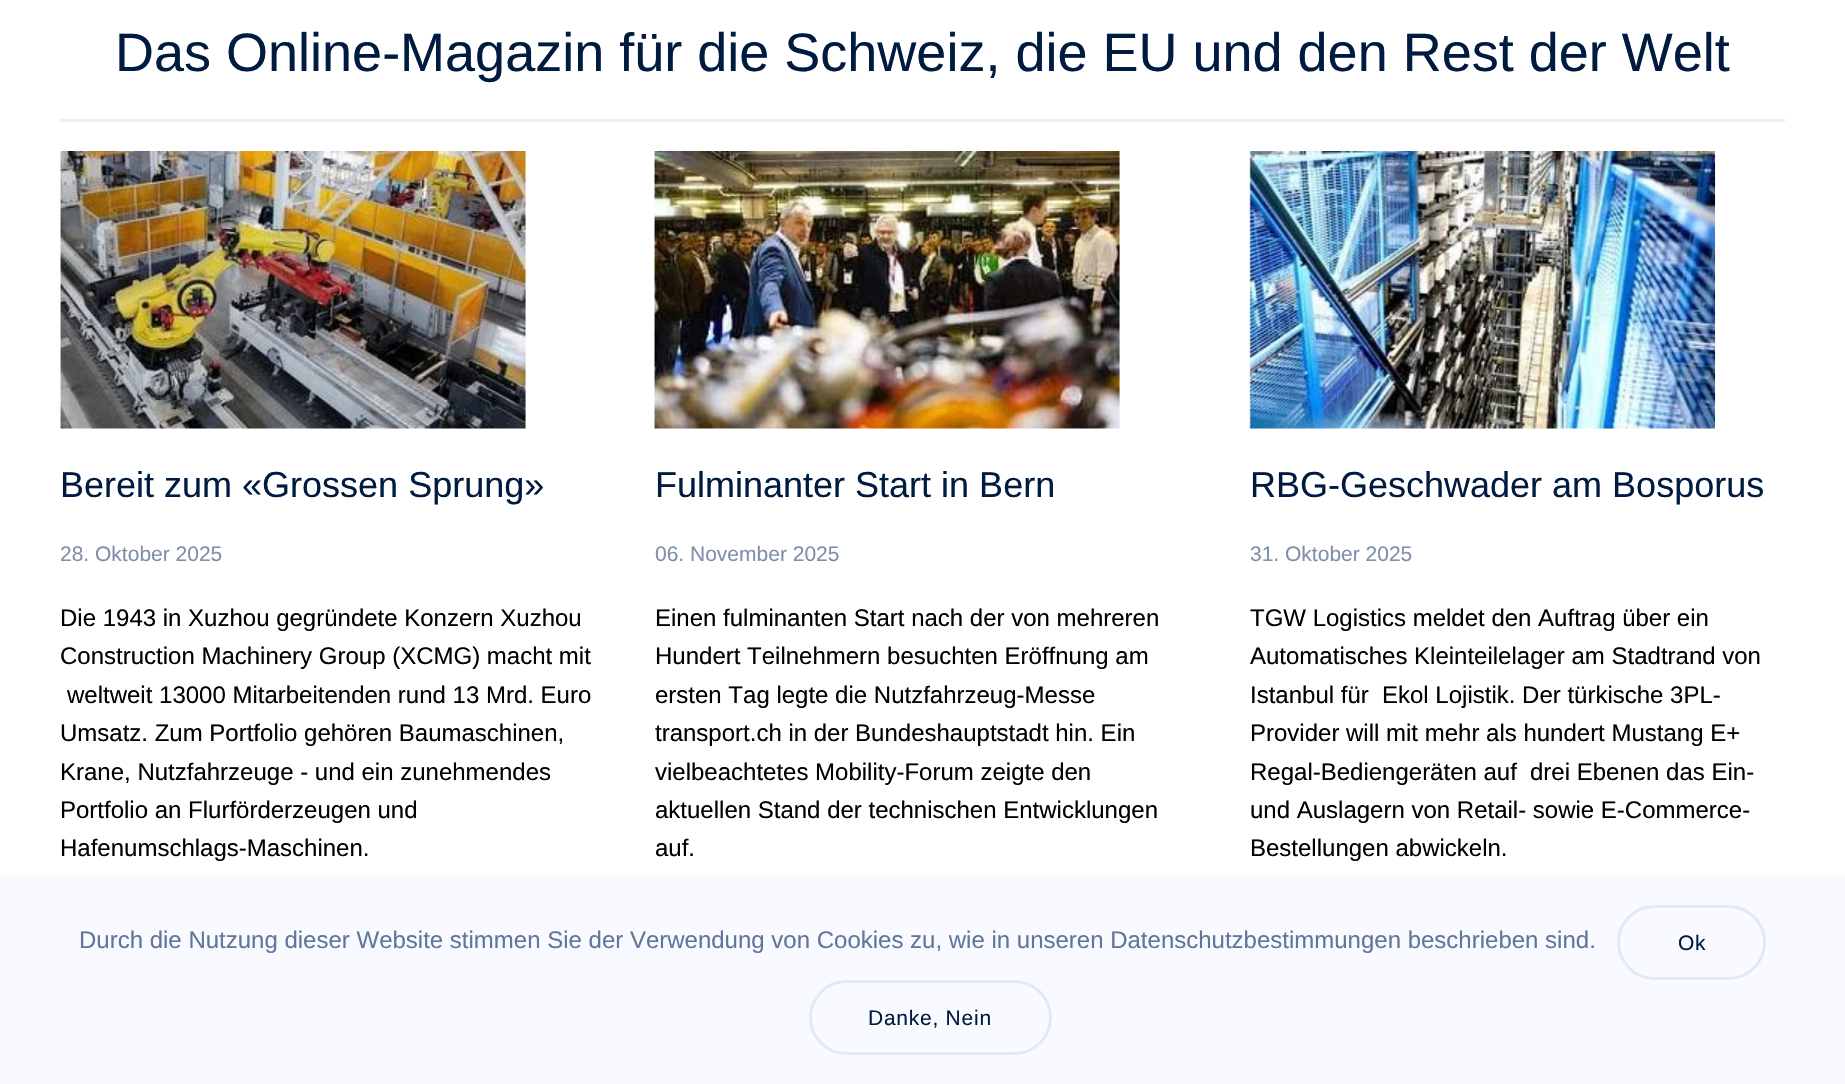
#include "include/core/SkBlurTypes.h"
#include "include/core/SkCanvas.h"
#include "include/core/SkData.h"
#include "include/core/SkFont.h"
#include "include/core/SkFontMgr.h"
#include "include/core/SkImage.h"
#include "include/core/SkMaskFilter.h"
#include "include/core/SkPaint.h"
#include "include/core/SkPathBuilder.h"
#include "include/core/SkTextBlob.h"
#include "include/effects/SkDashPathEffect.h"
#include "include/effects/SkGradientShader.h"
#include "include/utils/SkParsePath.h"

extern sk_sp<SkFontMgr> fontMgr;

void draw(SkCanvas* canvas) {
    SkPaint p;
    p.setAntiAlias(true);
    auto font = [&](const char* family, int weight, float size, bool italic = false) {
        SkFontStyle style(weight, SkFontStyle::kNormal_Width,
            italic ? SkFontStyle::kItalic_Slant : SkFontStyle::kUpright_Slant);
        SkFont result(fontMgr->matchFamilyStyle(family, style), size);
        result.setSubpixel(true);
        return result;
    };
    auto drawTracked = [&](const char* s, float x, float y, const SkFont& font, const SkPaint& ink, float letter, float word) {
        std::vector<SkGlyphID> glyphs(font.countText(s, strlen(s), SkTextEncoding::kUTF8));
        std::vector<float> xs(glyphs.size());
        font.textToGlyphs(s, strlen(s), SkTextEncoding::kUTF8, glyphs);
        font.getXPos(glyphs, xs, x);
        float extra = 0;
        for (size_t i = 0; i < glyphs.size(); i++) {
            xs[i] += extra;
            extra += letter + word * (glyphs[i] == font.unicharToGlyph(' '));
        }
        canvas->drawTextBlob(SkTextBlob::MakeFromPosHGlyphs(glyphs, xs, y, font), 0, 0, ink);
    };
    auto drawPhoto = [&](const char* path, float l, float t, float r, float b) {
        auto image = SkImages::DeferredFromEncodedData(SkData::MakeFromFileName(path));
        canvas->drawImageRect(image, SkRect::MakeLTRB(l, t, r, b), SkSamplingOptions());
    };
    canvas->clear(0xFFFFFFFF);
    auto font1 = font("Liberation Sans", 400, 54);
    p.setColor(0xFF001B40);
    canvas->drawString("Das Online-Magazin für die Schweiz, die EU und den Rest der Welt", 115, 71, font1, p);
    p.setColor(0xFFEAEEF8);
    canvas->drawRect(SkRect::MakeLTRB(60, 119, 1785, 122), p);
    drawPhoto("media/1.png", 60, 151, 526, 429);
    auto font2 = font("Liberation Sans", 400, 36);
    p.setColor(0xFF001B40);
    canvas->drawString("Bereit zum «Grossen Sprung»", 60, 497, font2, p);
    auto font3 = font("Liberation Sans", 400, 21);
    p.setColor(0xFF7F8FAB);
    canvas->drawString("28. Oktober 2025", 60, 561, font3, p);
    auto font4 = font("Liberation Sans", 400, 24);
    p.setColor(0xFF000000);
    {
        const struct { const char* s; float x, y; } items[] = {
            {"Die 1943 in Xuzhou gegründete Konzern Xuzhou", 60, 626},
            {"Construction Machinery Group (XCMG) macht mit", 60, 664},
            {"weltweit 13000 Mitarbeitenden rund 13 Mrd. Euro", 67, 703},
            {"Umsatz. Zum Portfolio gehören Baumaschinen,", 60, 741},
            {"Krane, Nutzfahrzeuge - und ein zunehmendes", 60, 780},
            {"Portfolio an Flurförderzeugen und", 60, 818},
            {"Hafenumschlags-Maschinen.", 60, 856},
        };
        for (auto [s, x, y] : items) {
            canvas->drawString(s, x, y, font4, p);
        }
    }
    drawPhoto("media/2.png", 654, 151, 1120, 429);
    p.setColor(0xFF001B40);
    canvas->drawString("Fulminanter Start in Bern", 655, 497, font2, p);
    p.setColor(0xFF7F8FAB);
    canvas->drawString("06. November 2025", 655, 561, font3, p);
    p.setColor(0xFF000000);
    {
        const struct { const char* s; float x, y; } items[] = {
            {"Einen fulminanten Start nach der von mehreren", 655, 626},
            {"Hundert Teilnehmern besuchten Eröffnung am", 655, 664},
            {"ersten Tag legte die Nutzfahrzeug-Messe", 655, 703},
            {"transport.ch in der Bundeshauptstadt hin. Ein", 655, 741},
            {"vielbeachtetes Mobility-Forum zeigte den", 655, 780},
            {"aktuellen Stand der technischen Entwicklungen", 655, 818},
            {"auf.", 655, 856},
        };
        for (auto [s, x, y] : items) {
            canvas->drawString(s, x, y, font4, p);
        }
    }
    drawPhoto("media/3.png", 1249, 151, 1716, 429);
    p.setColor(0xFF001B40);
    canvas->drawString("RBG-Geschwader am Bosporus", 1250, 497, font2, p);
    p.setColor(0xFF7F8FAB);
    canvas->drawString("31. Oktober 2025", 1250, 561, font3, p);
    p.setColor(0xFF000000);
    {
        const struct { const char* s; float x, y; } items[] = {
            {"TGW Logistics meldet den Auftrag über ein", 1250, 626},
            {"Automatisches Kleinteilelager am Stadtrand von", 1250, 664},
            {"Istanbul für", 1250, 703},
            {"Ekol Lojistik. Der türkische 3PL-", 1382, 703},
            {"Provider will mit mehr als hundert Mustang E+", 1250, 741},
            {"Regal-Bediengeräten auf", 1250, 780},
            {"drei Ebenen das Ein-", 1530, 780},
            {"und Auslagern von Retail- sowie E-Commerce-", 1250, 818},
            {"Bestellungen abwickeln.", 1250, 856},
        };
        for (auto [s, x, y] : items) {
            canvas->drawString(s, x, y, font4, p);
        }
    }
    p.setColor(0xFFF8FAFF);
    canvas->drawRect(SkRect::MakeLTRB(0, 875, 1845, 1084), p);
    p.setColor(0xFF60769A);
    canvas->drawString("Durch die Nutzung dieser Website stimmen Sie der Verwendung von Cookies zu, wie in unseren Datenschutzbestimmungen beschrieben sind.", 79, 948, font4, p);
    p.setStyle(SkPaint::kStroke_Style);
    p.setStrokeWidth(3);
    p.setColor(0xFFE2E8F6);
    canvas->drawRoundRect(SkRect::MakeLTRB(1618.5f, 906.5f, 1764.5f, 978.5f), 36, 36, p);
    p.setStyle(SkPaint::kFill_Style);
    p.setColor(0xFF001B40);
    drawTracked("Ok", 1678, 950, font3, p, 0.75f, 0);
    p.setStyle(SkPaint::kStroke_Style);
    p.setColor(0xFFE2E8F6);
    canvas->drawRoundRect(SkRect::MakeLTRB(810.5f, 981.5f, 1050.5f, 1053.5f), 36, 36, p);
    p.setStyle(SkPaint::kFill_Style);
    p.setColor(0xFF001B40);
    drawTracked("Danke, Nein", 868, 1025, font3, p, 0.75f, 0);
}
